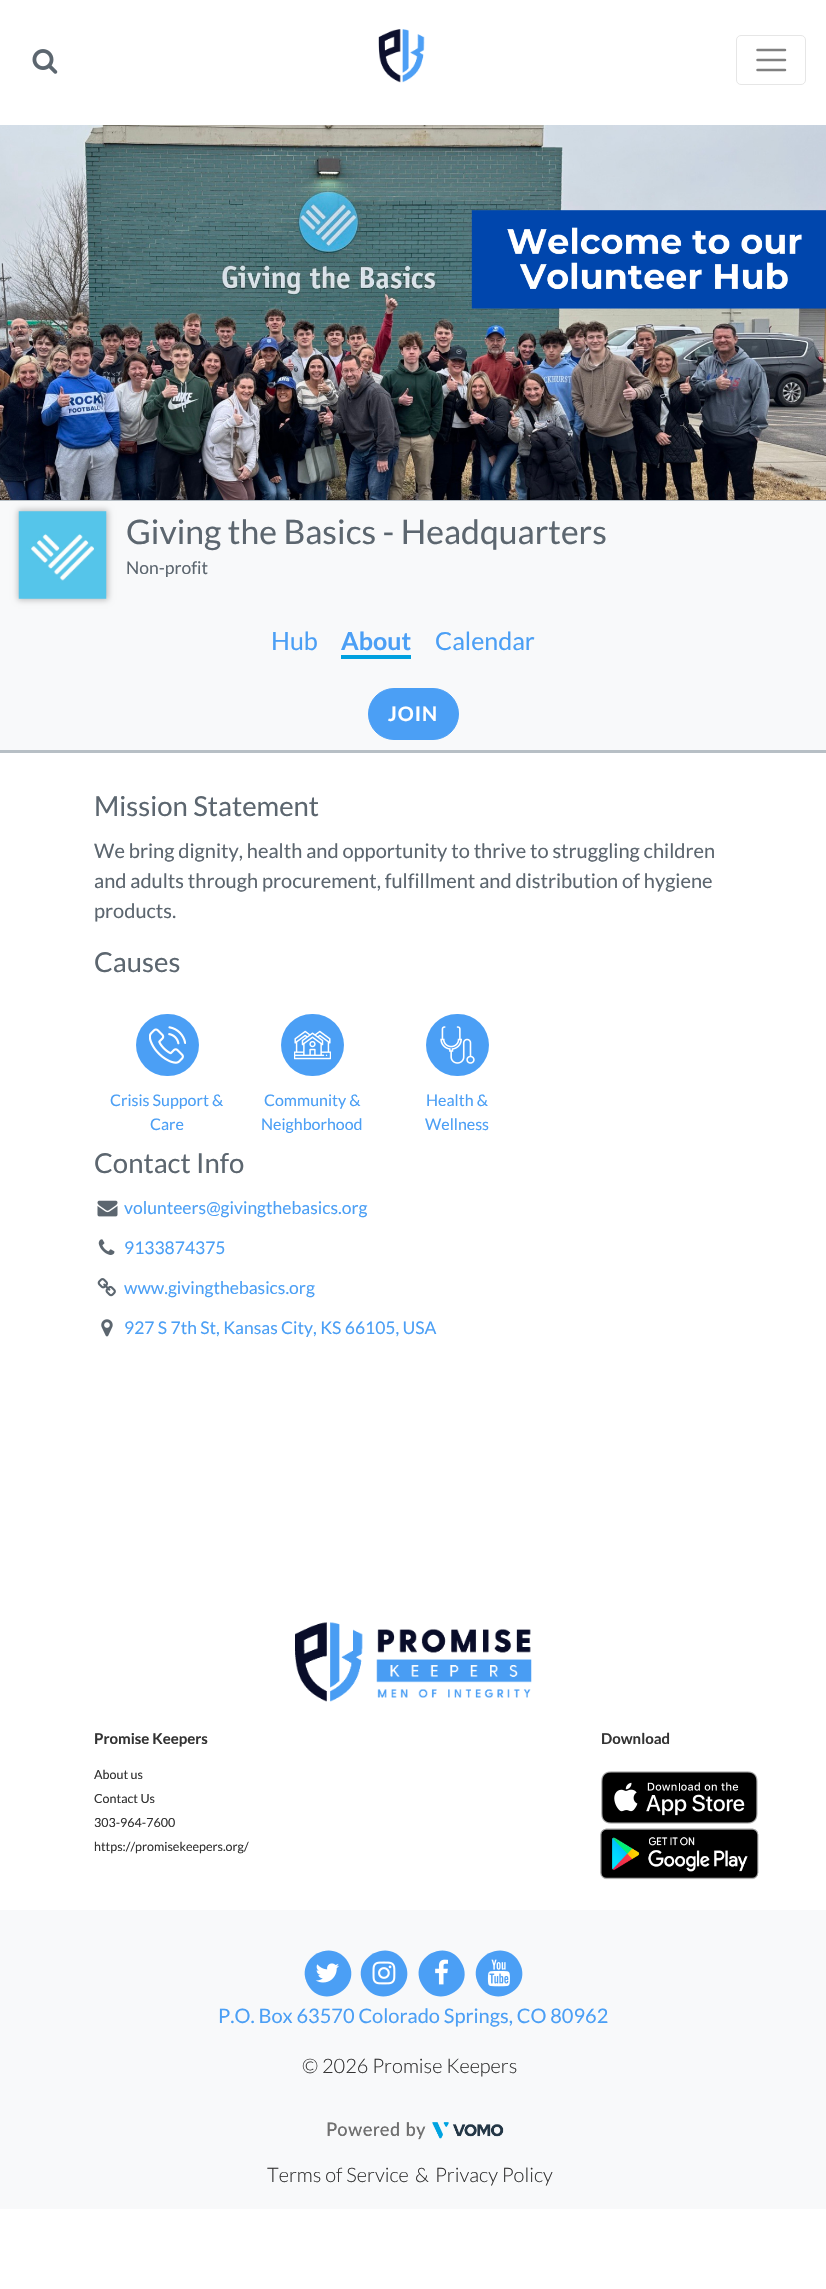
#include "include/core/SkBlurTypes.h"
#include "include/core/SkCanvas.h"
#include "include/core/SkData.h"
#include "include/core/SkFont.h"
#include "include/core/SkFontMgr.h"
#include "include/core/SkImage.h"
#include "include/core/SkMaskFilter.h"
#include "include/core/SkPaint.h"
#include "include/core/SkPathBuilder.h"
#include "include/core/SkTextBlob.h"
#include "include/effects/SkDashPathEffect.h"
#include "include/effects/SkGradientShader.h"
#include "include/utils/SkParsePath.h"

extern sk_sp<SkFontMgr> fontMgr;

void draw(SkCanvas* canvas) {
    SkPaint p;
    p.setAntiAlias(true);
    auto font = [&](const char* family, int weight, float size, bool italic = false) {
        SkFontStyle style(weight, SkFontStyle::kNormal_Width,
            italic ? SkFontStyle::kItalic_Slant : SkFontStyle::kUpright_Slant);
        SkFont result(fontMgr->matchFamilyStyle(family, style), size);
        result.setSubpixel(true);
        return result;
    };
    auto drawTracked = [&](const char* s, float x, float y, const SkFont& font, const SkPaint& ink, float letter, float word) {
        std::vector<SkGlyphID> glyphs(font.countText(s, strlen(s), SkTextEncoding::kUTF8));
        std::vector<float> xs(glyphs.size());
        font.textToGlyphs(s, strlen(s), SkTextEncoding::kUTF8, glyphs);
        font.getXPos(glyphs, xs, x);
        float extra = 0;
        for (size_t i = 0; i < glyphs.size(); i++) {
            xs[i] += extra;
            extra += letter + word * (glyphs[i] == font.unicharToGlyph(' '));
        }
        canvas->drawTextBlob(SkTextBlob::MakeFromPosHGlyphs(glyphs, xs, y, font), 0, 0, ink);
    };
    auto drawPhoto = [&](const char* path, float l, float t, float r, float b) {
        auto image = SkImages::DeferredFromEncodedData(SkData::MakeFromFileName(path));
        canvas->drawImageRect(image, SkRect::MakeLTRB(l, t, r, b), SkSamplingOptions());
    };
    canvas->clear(0xFFFFFFFF);
    drawPhoto("media/1.png", 32, 49, 58, 74);
    drawPhoto("media/2.png", 378, 29, 425, 83);
    p.setStyle(SkPaint::kStroke_Style);
    p.setStrokeWidth(1);
    p.setColor(0xFFE6E6E6);
    canvas->drawRoundRect(SkRect::MakeLTRB(736.5f, 35.5f, 805.5f, 84.5f), 4.5f, 4.5f, p);
    p.setStrokeWidth(2.5f);
    p.setStrokeCap(SkPaint::kRound_Cap);
    p.setColor(0xFF808080);
    canvas->drawPath(SkPathBuilder().moveTo(757.5f, 50).lineTo(785, 50).moveTo(757.5f, 60).lineTo(785, 60).moveTo(757.5f, 70).lineTo(785, 70).detach(), p);
    drawPhoto("media/3.png", 0, 125, 826, 500);
    p.setStyle(SkPaint::kFill_Style);
    {
        const struct { float l, t, r, b; SkColor color; } items[] = {
            {0, 501, 826, 750, 0xFFF8F9FA},
            {0, 500, 826, 501, 0xFFB7BFC5},
            {0, 750, 826, 753, 0xFFB7BFC5},
        };
        for (auto [l, t, r, b, color] : items) {
            p.setColor(color);
            canvas->drawRect(SkRect::MakeLTRB(l, t, r, b), p);
        }
    }
    p.setColor(0x40000000);
    p.setMaskFilter(SkMaskFilter::MakeBlur(kNormal_SkBlurStyle, 3));
    canvas->drawRect(SkRect::MakeLTRB(18, 510, 108, 600), p);
    p.setMaskFilter(nullptr);
    drawPhoto("media/4.png", 18, 511, 107, 599);
    auto font1 = font("Lato", 400, 33.75f);
    p.setColor(0xFF5C666F);
    canvas->drawString("Giving the Basics - Headquarters", 126, 544, font1, p);
    auto font2 = font("Lato", 400, 17.5f);
    canvas->drawString("Non-profit", 126, 574, font2, p);
    auto font3 = font("Lato", 400, 25);
    p.setColor(0xFF4B9FF5);
    canvas->drawString("Hub", 271, 650, font3, p);
    auto font4 = font("Lato", 700, 25);
    canvas->drawString("About", 341, 650, font4, p);
    p.setColor(0xFF00A0DF);
    canvas->drawRect(SkRect::MakeLTRB(341, 655, 411, 659), p);
    p.setColor(0xFF4B9FF5);
    canvas->drawString("Calendar", 435, 650, font3, p);
    canvas->drawRoundRect(SkRect::MakeLTRB(368.5f, 688.5f, 458.5f, 739.5f), 25.5f, 25.5f, p);
    p.setStyle(SkPaint::kStroke_Style);
    p.setStrokeWidth(1);
    p.setStrokeCap(SkPaint::kButt_Cap);
    canvas->drawRoundRect(SkRect::MakeLTRB(368.5f, 688.5f, 458.5f, 739.5f), 25.5f, 25.5f, p);
    auto font5 = font("Lato", 700, 20);
    p.setStyle(SkPaint::kFill_Style);
    p.setColor(0xFFFFFFFF);
    drawTracked("JOIN", 388, 721, font5, p, 1, 0);
    auto font6 = font("Lato", 400, 27.5f);
    p.setColor(0xFF5C666F);
    canvas->drawString("Mission Statement", 94, 816, font6, p);
    auto font7 = font("Lato", 400, 20);
    {
        const struct { const char* s; float x, y; } items[] = {
            {"We bring dignity, health and opportunity to thrive to struggling children", 94, 858},
            {"and adults through procurement, fulfillment and distribution of hygiene", 94, 888},
            {"products.", 94, 918},
        };
        for (auto [s, x, y] : items) {
            canvas->drawString(s, x, y, font7, p);
        }
    }
    canvas->drawString("Causes", 94, 972, font6, p);
    p.setColor(0xFF4B9FF5);
    canvas->drawRoundRect(SkRect::MakeLTRB(136, 1014, 199, 1076), 31, 31, p);
    drawPhoto("media/5.png", 149, 1026, 186, 1064);
    auto font8 = font("Lato", 400, 16);
    canvas->drawString("Crisis Support &", 110, 1106, font8, p);
    canvas->drawString("Care", 150, 1130, font8, p);
    canvas->drawRoundRect(SkRect::MakeLTRB(281, 1014, 344, 1076), 31, 31, p);
    drawPhoto("media/6.png", 294, 1030, 331, 1060);
    canvas->drawString("Community &", 264, 1106, font8, p);
    canvas->drawString("Neighborhood", 261, 1130, font8, p);
    canvas->drawRoundRect(SkRect::MakeLTRB(426, 1014, 489, 1076), 31, 31, p);
    drawPhoto("media/7.png", 440, 1026, 475, 1064);
    canvas->drawString("Health &", 426, 1106, font8, p);
    canvas->drawString("Wellness", 425, 1130, font8, p);
    p.setColor(0xFF5C666F);
    canvas->drawString("Contact Info", 94, 1173, font6, p);
    drawPhoto("media/8.png", 97, 1200, 118, 1217);
    p.setColor(0xFF4B9FF5);
    canvas->drawString("volunteers@givingthebasics.org", 124, 1214, font2, p);
    drawPhoto("media/9.png", 98, 1239, 115, 1255);
    canvas->drawString("9133874375", 124, 1254, font2, p);
    drawPhoto("media/10.png", 97, 1278, 116, 1297);
    canvas->drawString("www.givingthebasics.org", 124, 1294, font2, p);
    drawPhoto("media/11.png", 101, 1319, 113, 1337);
    canvas->drawString("927 S 7th St, Kansas City, KS 66105, USA", 124, 1334, font2, p);
    drawPhoto("media/12.png", 295, 1622, 532, 1702);
    auto font9 = font("Lato", 700, 15);
    p.setColor(0xFF333333);
    canvas->drawString("Promise Keepers", 94, 1744, font9, p);
    auto font10 = font("Lato", 400, 12.5f);
    {
        const struct { const char* s; float x, y; } items[] = {
            {"About us", 94, 1779},
            {"Contact Us", 94, 1803},
            {"303-964-7600", 94, 1827},
            {"https://promisekeepers.org/", 94, 1851},
        };
        for (auto [s, x, y] : items) {
            canvas->drawString(s, x, y, font10, p);
        }
    }
    canvas->drawString("Download", 601, 1744, font9, p);
    drawPhoto("media/13.png", 601, 1771, 758, 1824);
    drawPhoto("media/14.png", 600, 1828, 759, 1880);
    p.setColor(0xFFF8F9FA);
    canvas->drawRect(SkRect::MakeLTRB(0, 1910, 826, 2209), p);
    p.setColor(0xFF4B9FF5);
    canvas->drawPath(SkPathBuilder().moveTo(348, 1962).cubicTo(363, 1988, 323, 2011, 308, 1985).cubicTo(293, 1959, 332, 1936, 348, 1962).close().detach(), p);
    drawPhoto("media/15.png", 315, 1963, 339, 1983);
    canvas->drawPath(SkPathBuilder().moveTo(404, 1962).cubicTo(419, 1988, 380, 2011, 364, 1985).cubicTo(349, 1959, 389, 1936, 404, 1962).close().detach(), p);
    drawPhoto("media/16.png", 372, 1961, 396, 1985);
    canvas->drawPath(SkPathBuilder().moveTo(461, 1962).cubicTo(477, 1988, 437, 2011, 422, 1985).cubicTo(407, 1959, 446, 1936, 461, 1962).close().detach(), p);
    drawPhoto("media/17.png", 435, 1959, 448, 1985);
    canvas->drawPath(SkPathBuilder().moveTo(519, 1962).cubicTo(534, 1988, 495, 2011, 479, 1985).cubicTo(464, 1959, 504, 1936, 519, 1962).close().detach(), p);
    drawPhoto("media/18.png", 487, 1959, 510, 1987);
    canvas->drawString("P.O. Box 63570 Colorado Springs, CO 80962", 218, 2023, font7, p);
    auto font11 = font("Lato", 300, 20);
    p.setColor(0xFF333333);
    canvas->drawString("© 2026 Promise Keepers", 302, 2073, font11, p);
    drawPhoto("media/19.png", 327, 2122, 504, 2140);
    {
        const struct { const char* s; float x, y; } items[] = {
            {"Terms of Service", 267, 2182},
            {"&", 415, 2182},
            {"Privacy Policy", 435, 2182},
        };
        for (auto [s, x, y] : items) {
            canvas->drawString(s, x, y, font11, p);
        }
    }
}
